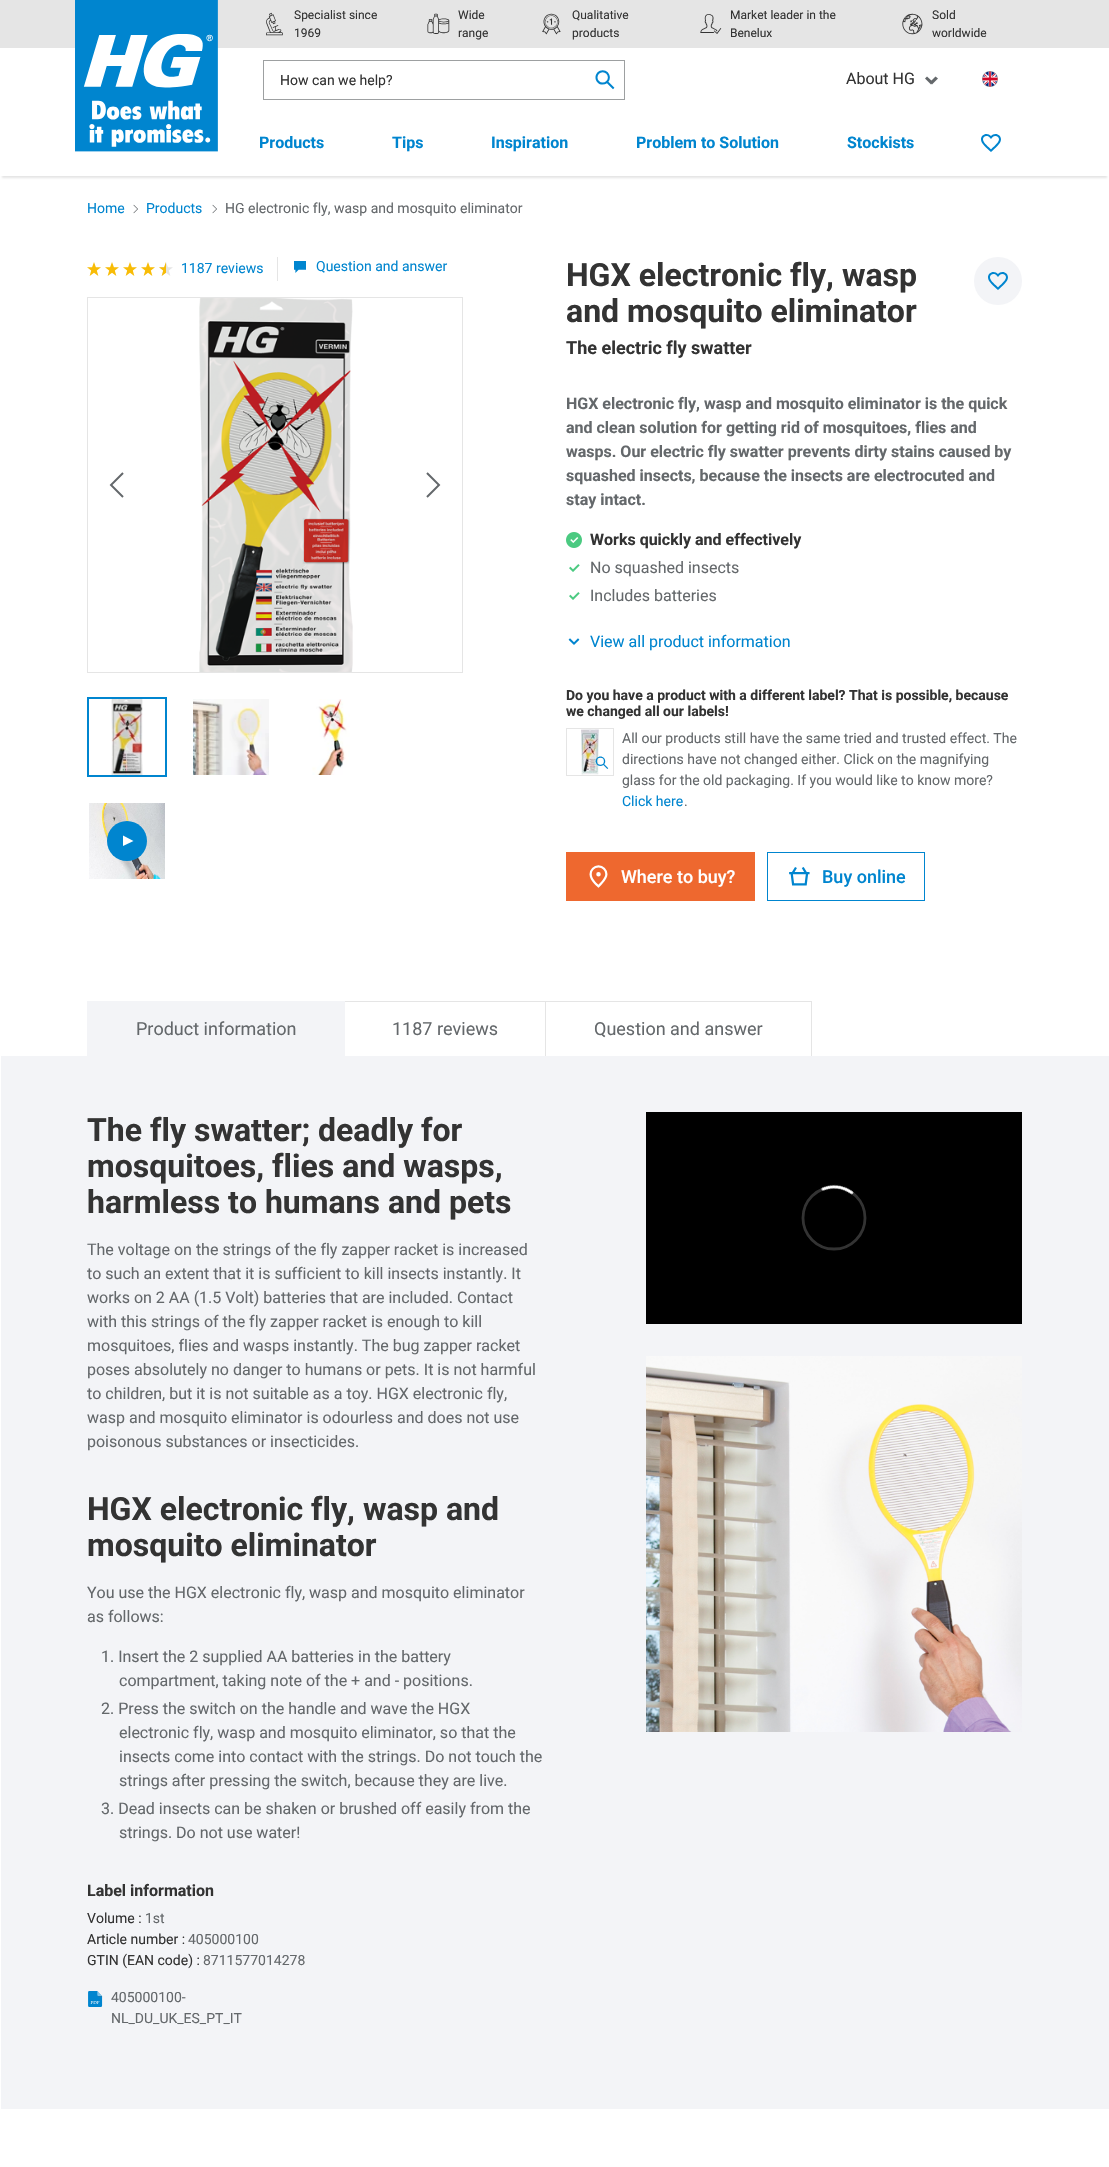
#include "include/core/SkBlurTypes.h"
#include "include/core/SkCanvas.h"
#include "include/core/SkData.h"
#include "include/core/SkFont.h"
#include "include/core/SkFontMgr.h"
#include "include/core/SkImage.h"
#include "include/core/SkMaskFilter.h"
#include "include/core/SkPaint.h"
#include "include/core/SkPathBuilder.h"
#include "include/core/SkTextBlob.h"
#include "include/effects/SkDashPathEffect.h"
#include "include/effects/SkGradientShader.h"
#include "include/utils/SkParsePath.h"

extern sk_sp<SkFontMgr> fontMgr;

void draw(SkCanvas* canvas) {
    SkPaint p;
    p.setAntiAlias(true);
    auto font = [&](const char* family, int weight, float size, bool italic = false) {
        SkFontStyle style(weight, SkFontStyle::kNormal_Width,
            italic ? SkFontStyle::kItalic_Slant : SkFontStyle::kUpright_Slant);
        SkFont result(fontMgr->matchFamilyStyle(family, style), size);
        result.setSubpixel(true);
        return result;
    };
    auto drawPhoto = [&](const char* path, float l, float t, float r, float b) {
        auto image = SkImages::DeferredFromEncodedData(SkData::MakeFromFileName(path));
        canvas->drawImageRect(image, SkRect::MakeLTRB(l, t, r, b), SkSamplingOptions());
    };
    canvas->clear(0xFFFFFFFF);
    canvas->save();
    canvas->clipRect(SkRect::MakeLTRB(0, 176, 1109, 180));
    p.setColor(0xFFE5E5E5);
    p.setMaskFilter(SkMaskFilter::MakeBlur(kNormal_SkBlurStyle, 1));
    canvas->drawRect(SkRect::MakeLTRB(2, 6, 1107, 178), p);
    p.setMaskFilter(nullptr);
    canvas->restore();
    canvas->drawRect(SkRect::MakeLTRB(0, 0, 1109, 48), p);
    drawPhoto("media/1.png", 75, 0, 218, 152);
    drawPhoto("media/2.png", 266, 12, 283, 36);
    auto font1 = font("Roboto", 400, 12);
    p.setColor(0xFF333333);
    canvas->drawString("Specialist since", 294, 19, font1, p);
    canvas->drawString("1969", 294, 37, font1, p);
    drawPhoto("media/3.png", 427, 13, 450, 34);
    canvas->drawString("Wide", 458, 19, font1, p);
    canvas->drawString("range", 458, 37, font1, p);
    drawPhoto("media/4.png", 542, 13, 561, 35);
    canvas->drawString("Qualitative", 572, 19, font1, p);
    canvas->drawString("products", 572, 37, font1, p);
    drawPhoto("media/5.png", 700, 14, 722, 34);
    canvas->drawString("Market leader in the", 730, 19, font1, p);
    canvas->drawString("Benelux", 730, 37, font1, p);
    drawPhoto("media/6.png", 902, 13, 923, 35);
    canvas->drawString("Sold", 932, 19, font1, p);
    canvas->drawString("worldwide", 932, 37, font1, p);
    p.setStyle(SkPaint::kStroke_Style);
    p.setStrokeWidth(1);
    p.setColor(0xFF9DA0A1);
    canvas->drawRect(SkRect::MakeLTRB(263.5f, 60.5f, 624.5f, 99.5f), p);
    auto font2 = font("Roboto", 400, 14);
    p.setStyle(SkPaint::kFill_Style);
    p.setColor(0xFF333333);
    canvas->drawString("How can we help?", 280, 85, font2, p);
    drawPhoto("media/7.png", 595, 70, 615, 90);
    auto font3 = font("Roboto", 400, 16);
    canvas->drawString("About HG", 846, 84, font3, p);
    p.setColor(0xFF64686B);
    canvas->drawPath(SkPathBuilder().moveTo(930, 82).lineTo(935.5f, 76.5f).lineTo(938, 78.5f).lineTo(932, 84.5f).close().detach(), p);
    canvas->drawPath(SkPathBuilder().moveTo(925, 78.5f).lineTo(927, 76.5f).lineTo(933, 82).lineTo(931, 84.5f).close().detach(), p);
    drawPhoto("media/8.png", 982, 71, 998, 87);
    auto font4 = font("Roboto", 700, 16);
    p.setColor(0xFF0085CF);
    {
        const struct { const char* s; float x, y; } items[] = {
            {"Products", 259, 148},
            {"Tips", 392, 148},
            {"Inspiration", 491, 148},
            {"Problem to Solution", 636, 148},
            {"Stockists", 847, 148},
        };
        for (auto [s, x, y] : items) {
            canvas->drawString(s, x, y, font4, p);
        }
    }
    drawPhoto("media/9.png", 981, 134, 1001, 152);
    canvas->drawString("Home", 87, 213, font2, p);
    drawPhoto("media/10.png", 133, 204, 138, 214);
    canvas->drawString("Products", 146, 213, font2, p);
    drawPhoto("media/10.png", 212, 204, 217, 214);
    p.setColor(0xFF64686B);
    canvas->drawString("HG electronic fly, wasp and mosquito eliminator", 225, 213, font2, p);
    drawPhoto("media/11.png", 87, 262, 101, 276);
    drawPhoto("media/11.png", 105, 262, 119, 276);
    drawPhoto("media/11.png", 123, 262, 137, 276);
    drawPhoto("media/11.png", 141, 262, 155, 276);
    drawPhoto("media/12.png", 159, 262, 173, 276);
    p.setColor(0xFF0085CF);
    canvas->drawString("1187 reviews", 181, 273, font2, p);
    p.setColor(0xFFE5E5E5);
    canvas->drawRect(SkRect::MakeLTRB(277, 257, 278, 281), p);
    drawPhoto("media/13.png", 294, 261, 306, 273);
    p.setColor(0xFF0085CF);
    canvas->drawString("Question and answer", 316, 271, font2, p);
    p.setStyle(SkPaint::kStroke_Style);
    p.setColor(0xFFE5E5E5);
    canvas->drawRect(SkRect::MakeLTRB(87.5f, 297.5f, 462.5f, 672.5f), p);
    drawPhoto("media/14.png", 109, 472, 124, 498);
    drawPhoto("media/15.png", 199, 298, 353, 672);
    drawPhoto("media/16.png", 426, 472, 441, 498);
    p.setStrokeWidth(2);
    p.setColor(0xFF0085CF);
    canvas->drawRect(SkRect::MakeLTRB(88, 698, 166, 776), p);
    drawPhoto("media/17.png", 111, 699, 143, 775);
    drawPhoto("media/18.png", 193, 699, 269, 775);
    drawPhoto("media/19.png", 312, 699, 350, 775);
    drawPhoto("media/20.png", 89, 803, 165, 879);
    p.setStyle(SkPaint::kFill_Style);
    canvas->drawCircle(127, 841, 20, p);
    p.setColor(0xFFFFFFFF);
    canvas->drawPath(SkPathBuilder(SkPathFillType::kEvenOdd).moveTo(133.5f, 841).lineTo(123, 846).lineTo(123, 835.5f).close().detach(), p);
    auto font5 = font("Roboto", 700, 32);
    p.setColor(0xFF333333);
    canvas->drawString("HGX electronic fly, wasp", 566, 286, font5, p);
    canvas->drawString("and mosquito eliminator", 566, 322, font5, p);
    auto font6 = font("Roboto", 700, 18);
    canvas->drawString("The electric fly swatter", 566, 354, font6, p);
    p.setColor(0xFFF3F4F7);
    canvas->drawCircle(998, 281, 24, p);
    drawPhoto("media/21.png", 988, 272, 1008, 290);
    p.setColor(0xFF64686B);
    {
        const struct { const char* s; float x, y; } items[] = {
            {"HGX electronic fly, wasp and mosquito eliminator is the quick", 566, 409},
            {"and clean solution for getting rid of mosquitoes, flies and", 566, 433},
            {"wasps. Our electric fly swatter prevents dirty stains caused by", 566, 457},
            {"squashed insects, because the insects are electrocuted and", 566, 481},
            {"stay intact.", 566, 505},
        };
        for (auto [s, x, y] : items) {
            canvas->drawString(s, x, y, font4, p);
        }
    }
    drawPhoto("media/22.png", 566, 532, 582, 548);
    p.setColor(0xFF333333);
    canvas->drawString("Works quickly and effectively", 590, 545, font4, p);
    drawPhoto("media/23.png", 569, 564, 580, 572);
    p.setColor(0xFF64686B);
    canvas->drawString("No squashed insects", 590, 573, font3, p);
    drawPhoto("media/23.png", 569, 592, 580, 600);
    canvas->drawString("Includes batteries", 590, 601, font3, p);
    drawPhoto("media/24.png", 568, 638, 580, 645);
    p.setColor(0xFF0085CF);
    canvas->drawString("View all product information", 590, 647, font3, p);
    auto font7 = font("Roboto", 700, 14);
    p.setColor(0xFF333333);
    canvas->drawString("Do you have a product with a different label? That is possible, because", 566, 700, font7, p);
    canvas->drawString("we changed all our labels!", 566, 716, font7, p);
    p.setStyle(SkPaint::kStroke_Style);
    p.setStrokeWidth(1);
    p.setColor(0xFFE5E5E5);
    canvas->drawRect(SkRect::MakeLTRB(566.5f, 728.5f, 613.5f, 775.5f), p);
    drawPhoto("media/25.png", 581, 729, 599, 775);
    drawPhoto("media/26.png", 595, 756, 609, 769);
    p.setStyle(SkPaint::kFill_Style);
    p.setColor(0xFF64686B);
    {
        const struct { const char* s; float x, y; } items[] = {
            {"All our products still have the same tried and trusted effect. The", 622, 743},
            {"directions have not changed either. Click on the magnifying", 622, 764},
            {"glass for the old packaging. If you would like to know more?", 622, 785},
        };
        for (auto [s, x, y] : items) {
            canvas->drawString(s, x, y, font2, p);
        }
    }
    p.setColor(0xFF0085CF);
    canvas->drawString("Click here", 622, 806, font2, p);
    p.setColor(0xFF64686B);
    canvas->drawString(".", 684, 806, font2, p);
    p.setColor(0xFFEE682F);
    canvas->drawRect(SkRect::MakeLTRB(566, 852, 755, 901), p);
    drawPhoto("media/27.png", 589, 865, 608, 888);
    auto font8 = font("Roboto", 500, 18);
    p.setColor(0xFFFFFFFF);
    canvas->drawString("Where to buy?", 621, 883, font8, p);
    p.setStyle(SkPaint::kStroke_Style);
    p.setColor(0xFF0085CF);
    canvas->drawRect(SkRect::MakeLTRB(767.5f, 852.5f, 924.5f, 900.5f), p);
    drawPhoto("media/28.png", 789, 867, 810, 886);
    p.setStyle(SkPaint::kFill_Style);
    canvas->drawString("Buy online", 822, 883, font8, p);
    p.setColor(0xFFF3F4F7);
    canvas->drawRect(SkRect::MakeLTRB(1, 1056, 1109, 2109), p);
    canvas->save();
    canvas->clipRect(SkRect::MakeLTRB(87, 1001, 1023, 1056));
    p.setStyle(SkPaint::kStroke_Style);
    p.setColor(0xFFE5E5E5);
    canvas->drawRect(SkRect::MakeLTRB(343.5f, 1001.5f, 546.5f, 1056.5f), p);
    p.setColor(0xFFF3F4F7);
    canvas->drawRect(SkRect::MakeLTRB(87.5f, 1001.5f, 344.5f, 1056.5f), p);
    canvas->restore();
    p.setStyle(SkPaint::kFill_Style);
    canvas->drawRect(SkRect::MakeLTRB(88, 1002, 344, 1056), p);
    auto font9 = font("Roboto", 400, 18);
    p.setColor(0xFF64686B);
    canvas->drawString("Product information", 136, 1035, font9, p);
    canvas->drawString("1187 reviews", 392, 1035, font9, p);
    canvas->save();
    canvas->clipRect(SkRect::MakeLTRB(87, 1001, 1023, 1056));
    p.setStyle(SkPaint::kStroke_Style);
    p.setColor(0xFFE5E5E5);
    canvas->drawRect(SkRect::MakeLTRB(545.5f, 1001.5f, 811.5f, 1056.5f), p);
    canvas->restore();
    p.setStyle(SkPaint::kFill_Style);
    p.setColor(0xFFFFFFFF);
    canvas->drawRect(SkRect::MakeLTRB(546, 1002, 547, 1056), p);
    p.setColor(0xFF64686B);
    canvas->drawString("Question and answer", 594, 1035, font9, p);
    p.setColor(0xFF333333);
    {
        const struct { const char* s; float x, y; } items[] = {
            {"The fly swatter; deadly for", 87, 1141},
            {"mosquitoes, flies and wasps,", 87, 1177},
            {"harmless to humans and pets", 87, 1213},
        };
        for (auto [s, x, y] : items) {
            canvas->drawString(s, x, y, font5, p);
        }
    }
    p.setColor(0xFF64686B);
    {
        const struct { const char* s; float x, y; } items[] = {
            {"The voltage on the strings of the fly zapper racket is increased", 87, 1255},
            {"to such an extent that it is sufficient to kill insects instantly. It", 87, 1279},
            {"works on 2 AA (1.5 Volt) batteries that are included. Contact", 87, 1303},
            {"with this strings of the fly zapper racket is enough to kill", 87, 1327},
            {"mosquitoes, flies and wasps instantly. The bug zapper racket", 87, 1351},
            {"poses absolutely no danger to humans or pets. It is not harmful", 87, 1375},
            {"to children, but it is not suitable as a toy. HGX electronic fly,", 87, 1399},
            {"wasp and mosquito eliminator is odourless and does not use", 87, 1423},
            {"poisonous substances or insecticides.", 87, 1447},
        };
        for (auto [s, x, y] : items) {
            canvas->drawString(s, x, y, font3, p);
        }
    }
    p.setColor(0xFF333333);
    canvas->drawString("HGX electronic fly, wasp and", 87, 1520, font5, p);
    canvas->drawString("mosquito eliminator", 87, 1556, font5, p);
    p.setColor(0xFF64686B);
    {
        const struct { const char* s; float x, y; } items[] = {
            {"You use the HGX electronic fly, wasp and mosquito eliminator", 87, 1598},
            {"as follows:", 87, 1622},
            {"1. Insert the 2 supplied AA batteries in the battery", 101, 1662},
            {"compartment, taking note of the + and - positions.", 119, 1686},
            {"2. Press the switch on the handle and wave the HGX", 101, 1714},
            {"electronic fly, wasp and mosquito eliminator, so that the", 119, 1738},
            {"insects come into contact with the strings. Do not touch the", 119, 1762},
            {"strings after pressing the switch, because they are live.", 119, 1786},
            {"3. Dead insects can be shaken or brushed off easily from the", 101, 1814},
            {"strings. Do not use water!", 119, 1838},
        };
        for (auto [s, x, y] : items) {
            canvas->drawString(s, x, y, font3, p);
        }
    }
    p.setColor(0xFF333333);
    canvas->drawString("Label information", 87, 1896, font4, p);
    canvas->drawString("Volume :", 87, 1923, font2, p);
    p.setColor(0xFF64686B);
    canvas->drawString("1st", 145, 1923, font2, p);
    p.setColor(0xFF333333);
    canvas->drawString("Article number :", 87, 1944, font2, p);
    p.setColor(0xFF64686B);
    canvas->drawString("405000100", 188, 1944, font2, p);
    p.setColor(0xFF333333);
    canvas->drawString("GTIN (EAN code) :", 87, 1965, font2, p);
    p.setColor(0xFF64686B);
    canvas->drawString("8711577014278", 203, 1965, font2, p);
    drawPhoto("media/29.png", 88, 1991, 103, 2007);
    canvas->drawString("405000100-", 111, 2002, font2, p);
    canvas->drawString("NL_DU_UK_ES_PT_IT", 111, 2023, font2, p);
    drawPhoto("media/30.png", 646, 1112, 1022, 1324);
    drawPhoto("media/31.png", 646, 1356, 1022, 1732);
}
